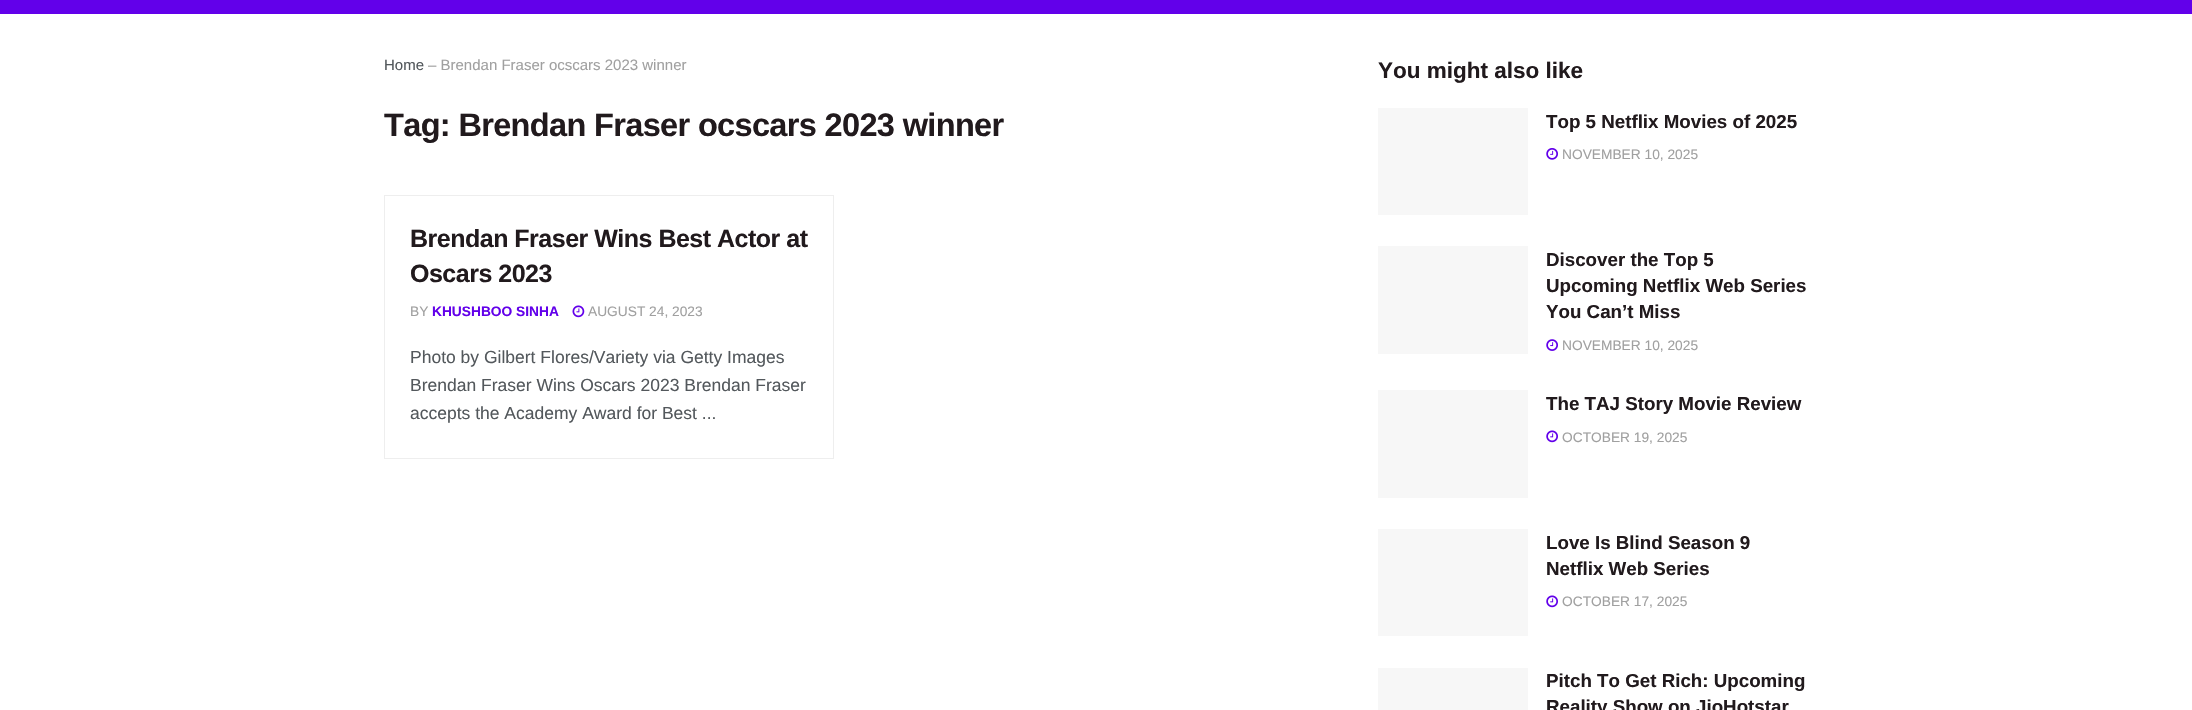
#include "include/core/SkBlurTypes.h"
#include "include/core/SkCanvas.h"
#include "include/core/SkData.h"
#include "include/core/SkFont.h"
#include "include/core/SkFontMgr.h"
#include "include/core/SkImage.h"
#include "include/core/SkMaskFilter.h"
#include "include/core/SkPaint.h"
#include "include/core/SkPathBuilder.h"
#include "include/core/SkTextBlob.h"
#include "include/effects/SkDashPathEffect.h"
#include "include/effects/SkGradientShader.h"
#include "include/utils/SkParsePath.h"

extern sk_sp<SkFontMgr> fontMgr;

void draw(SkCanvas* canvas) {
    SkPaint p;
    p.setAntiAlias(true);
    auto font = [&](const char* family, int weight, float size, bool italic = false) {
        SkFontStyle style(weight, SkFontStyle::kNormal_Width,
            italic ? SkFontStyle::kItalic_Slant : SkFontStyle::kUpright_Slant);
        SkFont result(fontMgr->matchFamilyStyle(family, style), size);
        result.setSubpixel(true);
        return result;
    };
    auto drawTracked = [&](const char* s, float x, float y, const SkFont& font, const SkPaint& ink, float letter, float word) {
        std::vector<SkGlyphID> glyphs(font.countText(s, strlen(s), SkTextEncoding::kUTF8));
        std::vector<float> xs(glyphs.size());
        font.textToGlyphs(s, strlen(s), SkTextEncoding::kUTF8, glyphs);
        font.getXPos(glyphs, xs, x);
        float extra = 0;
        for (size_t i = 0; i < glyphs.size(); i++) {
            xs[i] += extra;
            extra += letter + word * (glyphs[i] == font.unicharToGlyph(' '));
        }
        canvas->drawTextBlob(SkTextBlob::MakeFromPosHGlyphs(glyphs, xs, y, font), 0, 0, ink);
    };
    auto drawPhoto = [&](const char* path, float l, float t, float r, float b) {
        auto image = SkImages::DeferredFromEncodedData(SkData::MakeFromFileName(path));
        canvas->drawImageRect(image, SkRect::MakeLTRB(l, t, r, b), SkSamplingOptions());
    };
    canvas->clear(0xFFFFFFFF);
    p.setColor(0xFF6200EA);
    canvas->drawRect(SkRect::MakeLTRB(0, 0, 2192, 14), p);
    auto font1 = font("Liberation Sans", 400, 15);
    p.setColor(0xFF53585C);
    canvas->drawString("Home", 384, 70, font1, p);
    p.setColor(0xFFA0A0A0);
    canvas->drawString("– Brendan Fraser ocscars 2023 winner", 428, 70, font1, p);
    auto font2 = font("Liberation Sans", 700, 32.5f);
    p.setColor(0xFF211A1D);
    drawTracked("Tag: Brendan Fraser ocscars 2023 winner", 384, 136, font2, p, -0.65f, 0);
    p.setStyle(SkPaint::kStroke_Style);
    p.setStrokeWidth(1);
    p.setColor(0xFFEEEEEE);
    canvas->drawRect(SkRect::MakeLTRB(384.5f, 195.5f, 833.5f, 458.5f), p);
    auto font3 = font("Liberation Sans", 700, 25);
    p.setStyle(SkPaint::kFill_Style);
    p.setColor(0xFF211A1D);
    drawTracked("Brendan Fraser Wins Best Actor at", 410, 247, font3, p, -0.5f, 0);
    drawTracked("Oscars 2023", 410, 282, font3, p, -0.5f, 0);
    auto font4 = font("Liberation Sans", 400, 13.75f);
    p.setColor(0xFFA0A0A0);
    canvas->drawString("BY", 410, 316, font4, p);
    auto font5 = font("Liberation Sans", 700, 13.75f);
    p.setColor(0xFF6200EA);
    canvas->drawString("KHUSHBOO SINHA", 432, 316, font5, p);
    drawPhoto("media/1.png", 572, 305, 585, 318);
    p.setColor(0xFFA0A0A0);
    canvas->drawString("AUGUST 24, 2023", 588, 316, font4, p);
    auto font6 = font("Liberation Sans", 400, 17.5f);
    p.setColor(0xFF53585C);
    {
        const struct { const char* s; float x, y; } items[] = {
            {"Photo by Gilbert Flores/Variety via Getty Images", 410, 363},
            {"Brendan Fraser Wins Oscars 2023 Brendan Fraser", 410, 391},
            {"accepts the Academy Award for Best ...", 410, 419},
        };
        for (auto [s, x, y] : items) {
            canvas->drawString(s, x, y, font6, p);
        }
    }
    auto font7 = font("Liberation Sans", 700, 22.5f);
    p.setColor(0xFF211A1D);
    canvas->drawString("You might also like", 1378, 78, font7, p);
    p.setColor(0xFFF7F7F7);
    canvas->drawRect(SkRect::MakeLTRB(1378, 108, 1528, 215), p);
    auto font8 = font("Liberation Sans", 700, 18.75f);
    p.setColor(0xFF211A1D);
    canvas->drawString("Top 5 Netflix Movies of 2025", 1546, 128, font8, p);
    drawPhoto("media/2.png", 1546, 148, 1558, 160);
    p.setColor(0xFFA0A0A0);
    canvas->drawString("NOVEMBER 10, 2025", 1562, 159, font4, p);
    p.setColor(0xFFF7F7F7);
    canvas->drawRect(SkRect::MakeLTRB(1378, 246, 1528, 354), p);
    p.setColor(0xFF211A1D);
    {
        const struct { const char* s; float x, y; } items[] = {
            {"Discover the Top 5", 1546, 266},
            {"Upcoming Netflix Web Series", 1546, 292},
            {"You Can’t Miss", 1546, 318},
        };
        for (auto [s, x, y] : items) {
            canvas->drawString(s, x, y, font8, p);
        }
    }
    drawPhoto("media/3.png", 1546, 339, 1558, 351);
    p.setColor(0xFFA0A0A0);
    canvas->drawString("NOVEMBER 10, 2025", 1562, 350, font4, p);
    p.setColor(0xFFF7F7F7);
    canvas->drawRect(SkRect::MakeLTRB(1378, 390, 1528, 498), p);
    p.setColor(0xFF211A1D);
    canvas->drawString("The TAJ Story Movie Review", 1546, 410, font8, p);
    drawPhoto("media/4.png", 1546, 430, 1558, 443);
    p.setColor(0xFFA0A0A0);
    canvas->drawString("OCTOBER 19, 2025", 1562, 442, font4, p);
    p.setColor(0xFFF7F7F7);
    canvas->drawRect(SkRect::MakeLTRB(1378, 529, 1528, 636), p);
    p.setColor(0xFF211A1D);
    canvas->drawString("Love Is Blind Season 9", 1546, 549, font8, p);
    canvas->drawString("Netflix Web Series", 1546, 575, font8, p);
    drawPhoto("media/4.png", 1546, 595, 1558, 608);
    p.setColor(0xFFA0A0A0);
    canvas->drawString("OCTOBER 17, 2025", 1562, 606, font4, p);
    p.setColor(0xFFF7F7F7);
    canvas->drawRect(SkRect::MakeLTRB(1378, 668, 1528, 710), p);
    p.setColor(0xFF211A1D);
    canvas->drawString("Pitch To Get Rich: Upcoming", 1546, 687, font8, p);
    canvas->drawString("Reality Show on JioHotstar", 1546, 713, font8, p);
}
